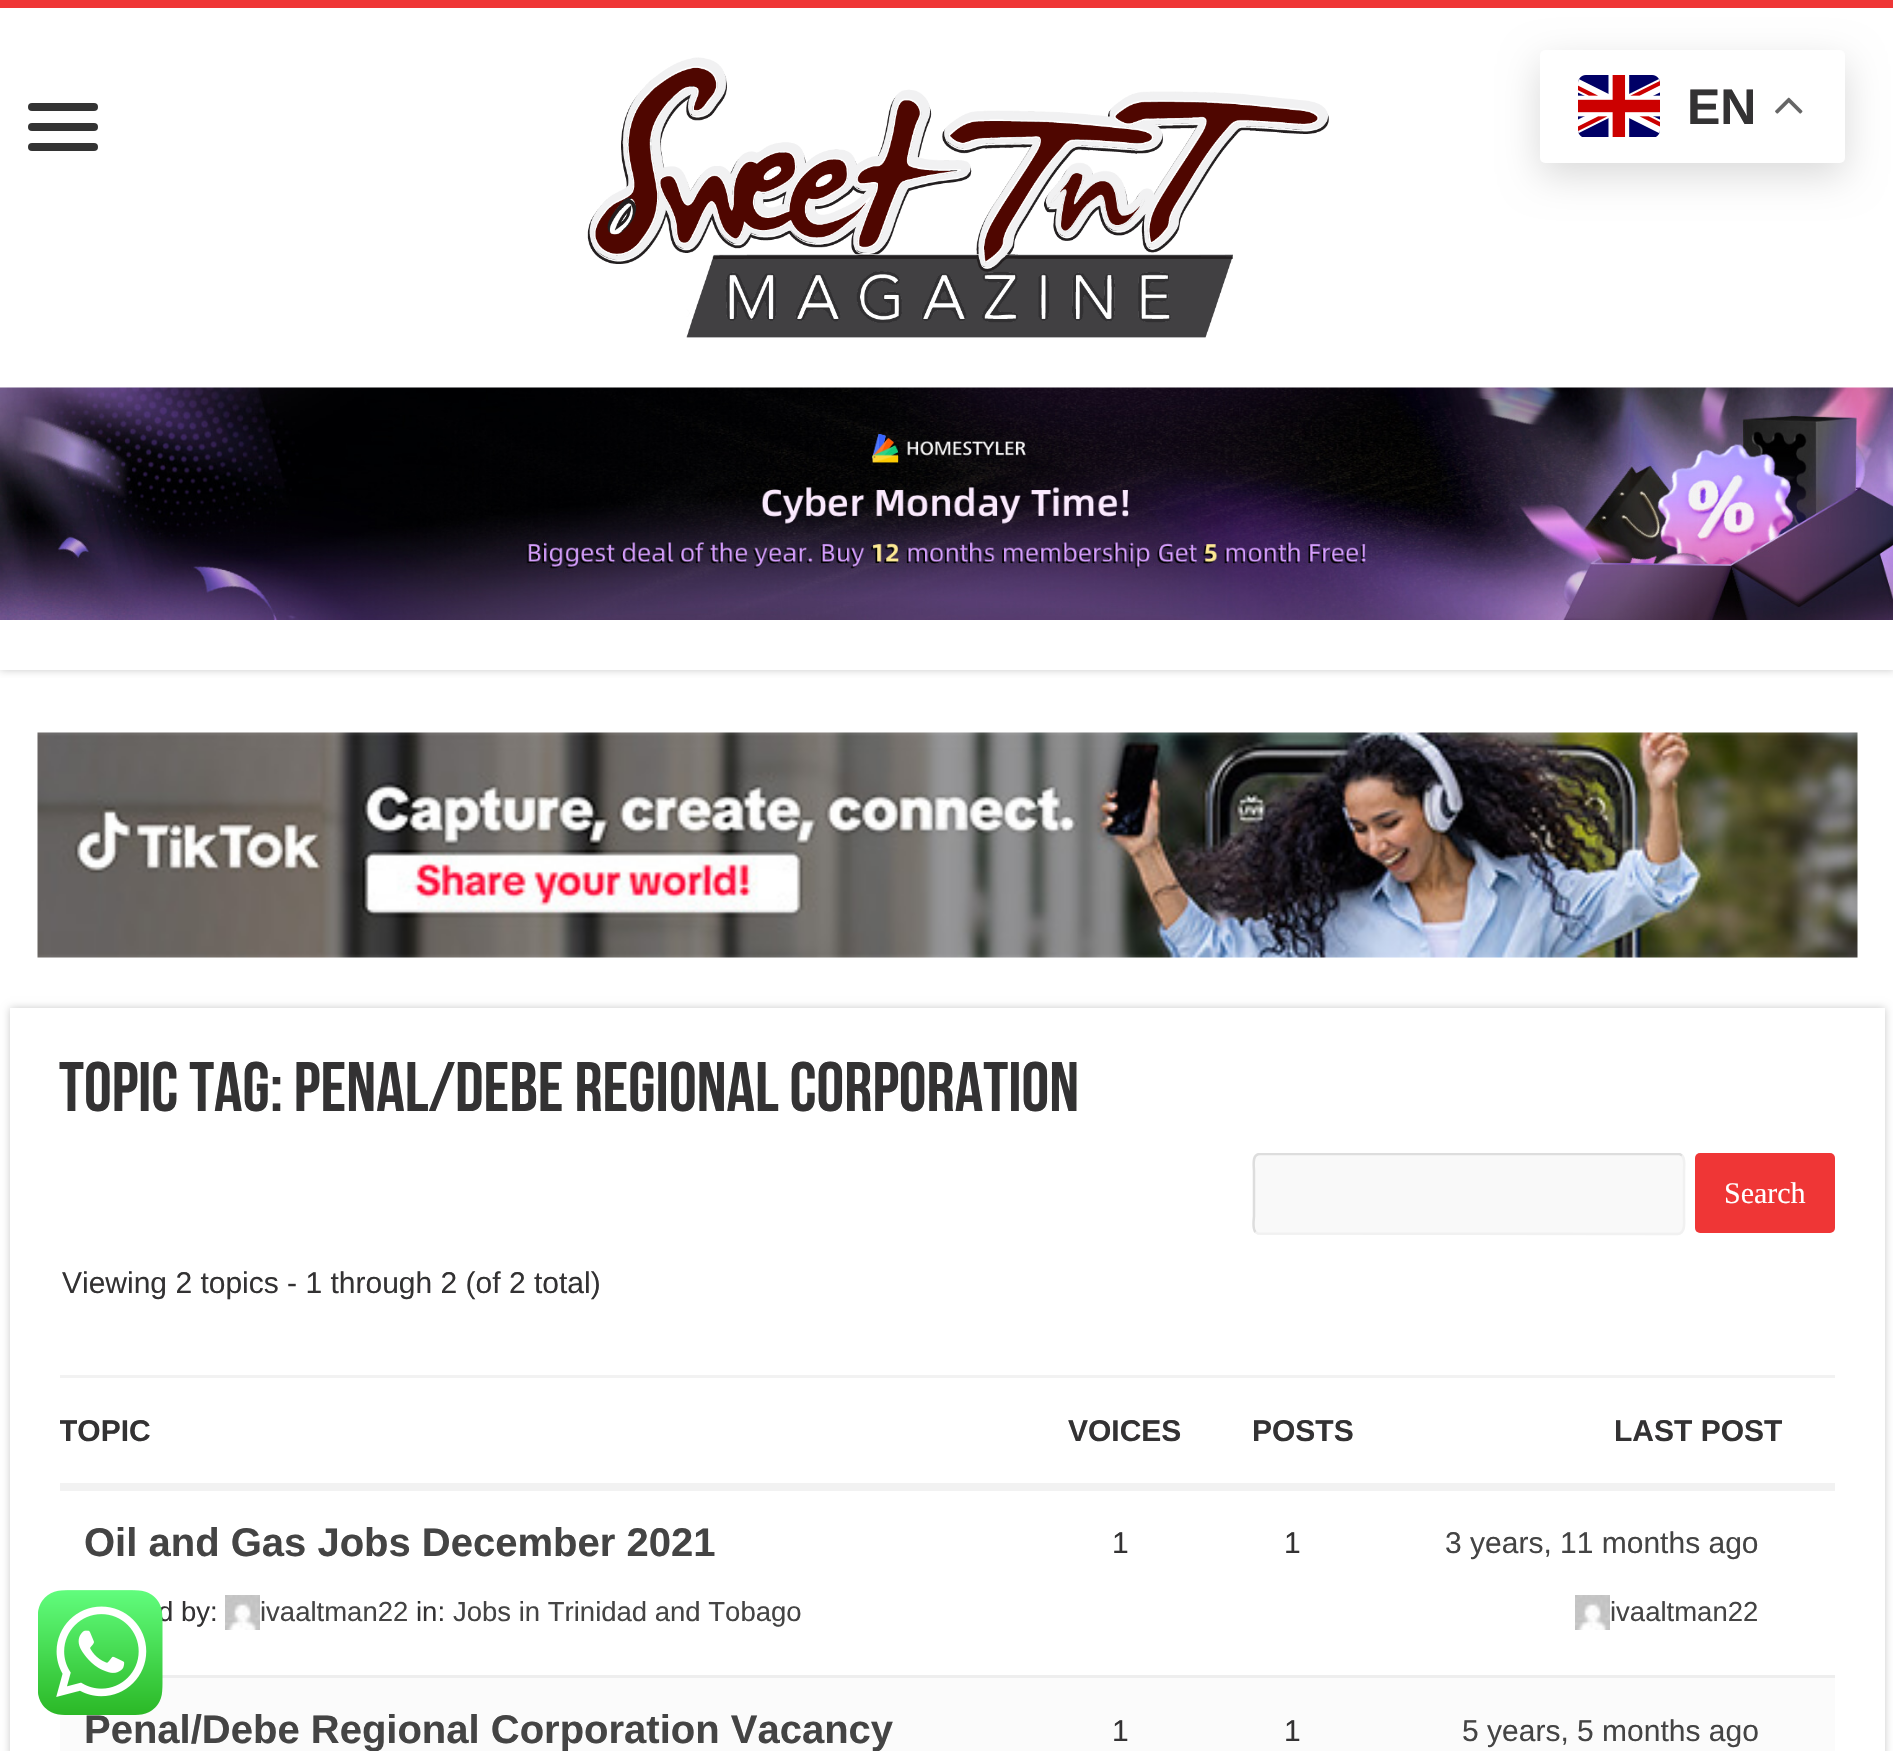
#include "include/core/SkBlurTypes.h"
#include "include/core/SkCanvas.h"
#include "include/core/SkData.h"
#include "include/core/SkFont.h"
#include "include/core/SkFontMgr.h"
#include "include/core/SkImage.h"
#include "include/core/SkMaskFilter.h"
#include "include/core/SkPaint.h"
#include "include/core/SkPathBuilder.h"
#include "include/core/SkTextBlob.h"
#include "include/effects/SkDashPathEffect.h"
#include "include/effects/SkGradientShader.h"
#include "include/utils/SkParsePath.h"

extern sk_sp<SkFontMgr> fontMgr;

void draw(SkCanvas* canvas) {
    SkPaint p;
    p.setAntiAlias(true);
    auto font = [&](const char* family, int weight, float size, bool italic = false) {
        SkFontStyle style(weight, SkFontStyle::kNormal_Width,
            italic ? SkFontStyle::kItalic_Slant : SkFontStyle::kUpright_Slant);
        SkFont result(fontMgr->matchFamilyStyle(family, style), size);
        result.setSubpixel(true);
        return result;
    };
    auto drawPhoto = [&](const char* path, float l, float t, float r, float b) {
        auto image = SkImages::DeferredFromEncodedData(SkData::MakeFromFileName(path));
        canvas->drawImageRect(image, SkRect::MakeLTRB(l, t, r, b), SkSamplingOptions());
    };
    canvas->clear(0xFFFFFFFF);
    canvas->save();
    canvas->clipRect(SkRect::MakeLTRB(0, 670, 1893, 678));
    p.setColor(0xFFCACACA);
    p.setMaskFilter(SkMaskFilter::MakeBlur(kNormal_SkBlurStyle, 4));
    canvas->drawRect(SkRect::MakeLTRB(0, 0, 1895, 670), p);
    p.setMaskFilter(nullptr);
    canvas->restore();
    p.setColor(0xFFEF3636);
    canvas->drawRect(SkRect::MakeLTRB(0, 0, 1893, 8), p);
    p.setColor(0x26000000);
    p.setMaskFilter(SkMaskFilter::MakeBlur(kNormal_SkBlurStyle, 19));
    canvas->drawRoundRect(SkRect::MakeLTRB(1540, 63, 1845, 175), 5, 5, p);
    p.setMaskFilter(nullptr);
    p.setColor(0xFFFFFFFF);
    canvas->drawRoundRect(SkRect::MakeLTRB(1540, 50, 1845, 163), 5, 5, p);
    drawPhoto("media/1.png", 1578, 75, 1660, 137);
    auto font1 = font("Liberation Sans", 700, 50);
    p.setColor(0xFF333233);
    canvas->drawString("EN", 1687, 124, font1, p);
    drawPhoto("media/2.png", 1775, 97, 1803, 114);
    p.setColor(0xFF333333);
    canvas->drawRoundRect(SkRect::MakeLTRB(28, 103, 98, 111), 4, 4, p);
    canvas->drawRoundRect(SkRect::MakeLTRB(28, 123, 98, 131), 4, 4, p);
    canvas->drawRoundRect(SkRect::MakeLTRB(28, 143, 98, 151), 4, 4, p);
    drawPhoto("media/3.png", 587, 57, 1329, 338);
    drawPhoto("media/4.png", 0, 387, 1893, 620);
    drawPhoto("media/5.png", 37, 732, 1858, 958);
    canvas->save();
    canvas->clipPath(SkPathBuilder(SkPathFillType::kEvenOdd).moveTo(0, 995).lineTo(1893, 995).lineTo(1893, 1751).lineTo(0, 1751).close().moveTo(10, 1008).lineTo(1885, 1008).lineTo(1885, 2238).lineTo(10, 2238).close().detach(), true);
    p.setColor(0xFFCACACA);
    p.setMaskFilter(SkMaskFilter::MakeBlur(kNormal_SkBlurStyle, 4));
    canvas->drawRect(SkRect::MakeLTRB(10, 1008, 1885, 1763), p);
    p.setMaskFilter(nullptr);
    canvas->restore();
    auto font2 = font("Bebas Neue", 700, 70);
    p.setColor(0xFF333233);
    canvas->drawString("Topic Tag: Penal/Debe Regional Corporation", 59, 1111, font2, p);
    p.setColor(0xFFF9F9F9);
    canvas->drawRoundRect(SkRect::MakeLTRB(1253, 1153, 1685, 1235), 8, 8, p);
    p.setStyle(SkPaint::kStroke_Style);
    p.setStrokeWidth(2.5f);
    p.setColor(0xFFF1F1F1);
    canvas->drawPath(SkPathBuilder().moveTo(1682, 1155.5f).cubicTo(1685.5f, 1159, 1684, 1168.5f, 1684, 1171).lineTo(1684, 1216).cubicTo(1684, 1221, 1686, 1233.5f, 1677.5f, 1234).lineTo(1258, 1233.5f).lineTo(1255.5f, 1232).detach(), p);
    canvas->save();
    canvas->clipRect(SkRect::MakeLTRB(60, 1153, 1835, 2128));
    p.setColor(0xFFDDDDDD);
    canvas->drawPath(SkPathBuilder().moveTo(1255.5f, 1232).cubicTo(1252, 1228.5f, 1254, 1219, 1254, 1216).lineTo(1254, 1171).cubicTo(1254, 1166.5f, 1251.5f, 1154, 1260, 1154).lineTo(1679.5f, 1154).lineTo(1682, 1155.5f).detach(), p);
    canvas->restore();
    p.setStyle(SkPaint::kFill_Style);
    p.setColor(0xFFEF3636);
    canvas->drawRoundRect(SkRect::MakeLTRB(1695, 1153, 1835, 1233), 5, 5, p);
    auto font3 = font("Liberation Serif", 400, 30);
    p.setColor(0xFFFFFFFF);
    canvas->drawString("Search", 1724, 1203, font3, p);
    auto font4 = font("Liberation Sans", 400, 30);
    p.setColor(0xFF333233);
    canvas->drawString("Viewing 2 topics - 1 through 2 (of 2 total)", 62, 1293, font4, p);
    p.setColor(0xFFF2F2F2);
    canvas->drawRect(SkRect::MakeLTRB(60, 1375, 1835, 1378), p);
    canvas->drawRect(SkRect::MakeLTRB(60, 1483, 1835, 1491), p);
    canvas->save();
    canvas->clipRect(SkRect::MakeLTRB(60, 1403, 1835, 1458));
    auto font5 = font("Liberation Sans", 700, 30);
    p.setColor(0xFF333233);
    canvas->drawString("TOPIC", 59, 1441, font5, p);
    canvas->restore();
    {
        const struct { const char* s; float x, y; } items[] = {
            {"VOICES", 1068, 1441},
            {"POSTS", 1252, 1441},
            {"LAST POST", 1614, 1441},
        };
        for (auto [s, x, y] : items) {
            canvas->drawString(s, x, y, font5, p);
        }
    }
    p.setColor(0xFFEEEEEE);
    canvas->drawRect(SkRect::MakeLTRB(162, 1675, 1835, 1678), p);
    auto font6 = font("Liberation Sans", 700, 40);
    p.setColor(0xFF444444);
    canvas->drawString("Oil and Gas Jobs December 2021", 84, 1556, font6, p);
    auto font7 = font("Liberation Sans", 400, 27.5f);
    p.setColor(0xFF333233);
    canvas->drawString("d by:", 158, 1621, font7, p);
    drawPhoto("media/6.png", 225, 1595, 260, 1630);
    p.setColor(0xFF444444);
    canvas->drawString("ivaaltman22", 260, 1621, font7, p);
    p.setColor(0xFF333233);
    canvas->drawString("in:", 416, 1621, font7, p);
    p.setColor(0xFF444444);
    canvas->drawString("Jobs in Trinidad and Tobago", 453, 1621, font7, p);
    p.setColor(0xFF333233);
    canvas->drawString("1", 1112, 1553, font4, p);
    canvas->drawString("1", 1284, 1553, font4, p);
    p.setColor(0xFF444444);
    canvas->drawString("3 years, 11 months ago", 1445, 1553, font4, p);
    drawPhoto("media/6.png", 1575, 1595, 1610, 1630);
    canvas->drawString("ivaaltman22", 1610, 1621, font7, p);
    p.setColor(0xFFFBFBFB);
    canvas->drawRect(SkRect::MakeLTRB(60, 1678, 1835, 1751), p);
    p.setColor(0xFF444444);
    canvas->drawString("Penal/Debe Regional Corporation Vacancy", 84, 1743, font6, p);
    p.setColor(0xFF333233);
    canvas->drawString("1", 1112, 1741, font4, p);
    canvas->drawString("1", 1284, 1741, font4, p);
    p.setColor(0xFF444444);
    canvas->drawString("5 years, 5 months ago", 1462, 1741, font4, p);
    drawPhoto("media/7.png", 38, 1590, 163, 1715);
}
